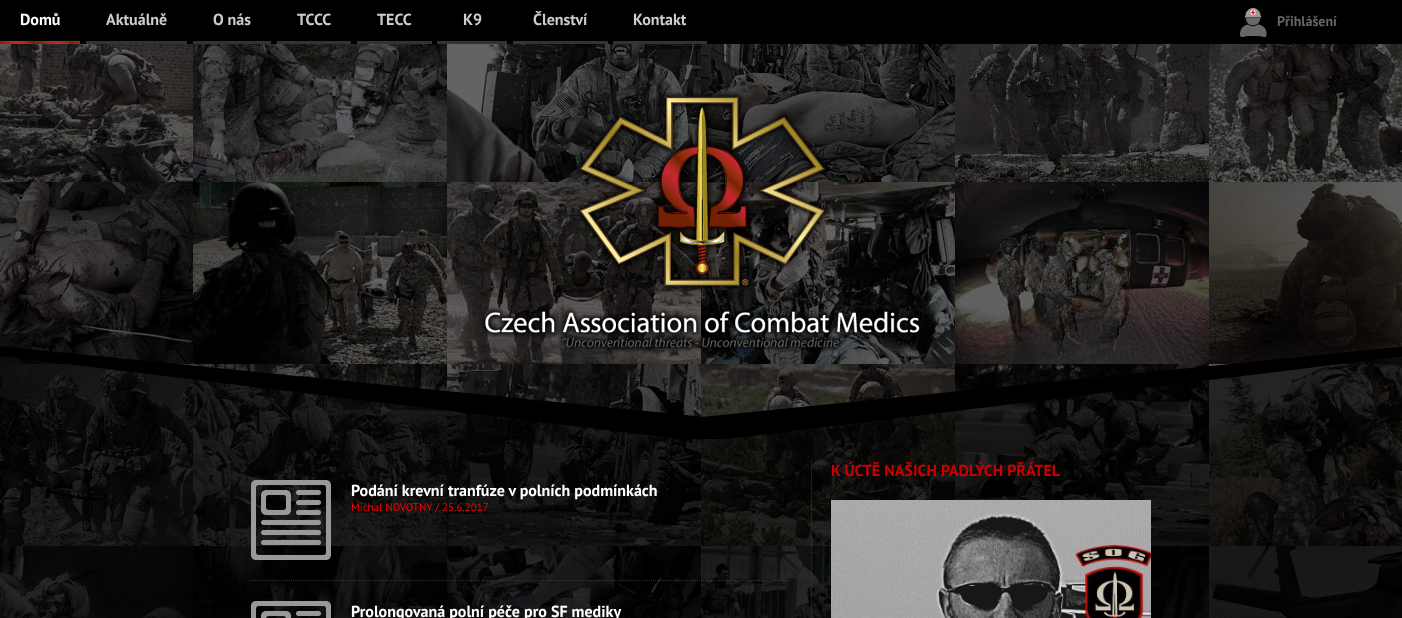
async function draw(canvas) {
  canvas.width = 1402;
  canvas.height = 618;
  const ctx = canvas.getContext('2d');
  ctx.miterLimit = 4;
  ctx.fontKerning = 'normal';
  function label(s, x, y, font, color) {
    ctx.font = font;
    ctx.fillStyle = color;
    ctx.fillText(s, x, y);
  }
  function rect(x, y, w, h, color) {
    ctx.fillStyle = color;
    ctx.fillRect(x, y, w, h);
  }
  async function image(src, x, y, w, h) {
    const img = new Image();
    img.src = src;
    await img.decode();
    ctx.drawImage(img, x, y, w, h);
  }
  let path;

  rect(0, 0, 1402, 618, '#fff');
  await image('assets/img1.png', 0, 44, 1402, 574);
  rect(0, 0, 1402, 44, '#000');
  await image('assets/img2.png', 0, 41, 80, 3);
  label('Domů', 20, 25, 'bold 16px PT Sans', '#fff');
  rect(86, 41, 101, 3, '#333');
  label('Aktuálně', 106, 25, 'bold 16px PT Sans', '#ccc');
  rect(193, 41, 78, 3, '#333');
  label('O nás', 213, 25, 'bold 16px PT Sans', '#ccc');
  rect(277, 41, 74, 3, '#333');
  label('TCCC', 297, 25, 'bold 16px PT Sans', '#ccc');
  rect(357, 41, 75, 3, '#333');
  label('TECC', 377, 25, 'bold 16px PT Sans', '#ccc');
  rect(437, 41, 70, 3, '#333');
  label('K9', 463, 25, 'bold 16px PT Sans', '#ccc');
  rect(513, 41, 95, 3, '#333');
  label('Členství', 533, 25, 'bold 16px PT Sans', '#ccc');
  rect(613, 41, 94, 3, '#333');
  label('Kontakt', 633, 25, 'bold 16px PT Sans', '#ccc');
  await image('assets/img3.png', 1240, 8, 27, 29);
  label('Přihlášení', 1277, 26, 'bold 14px PT Sans', '#666');
  await image('assets/img5.png', 0, 346, 1402, 93);
  await image('assets/img4.png', 481, 91, 439, 262);
  rect(0, 439, 1402, 179, '#00000099');
  label('K ÚCTĚ NAŠICH PADLÝCH PŘÁTEL', 831, 476, 'bold 16px PT Sans', '#c00');
  await image('assets/img6.png', 831, 500, 320, 118);
  path = new Path2D('M811.5 460V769');
  ctx.strokeStyle = '#333';
  ctx.setLineDash([1, 1]);
  ctx.stroke(path);
  path = new Path2D('M251 580.5H791');
  ctx.stroke(path);
  await image('assets/img7.png', 251, 480, 80, 80);
  label('Podání krevní tranfúze v polních podmínkách', 351, 496, 'bold 16px PT Sans', '#fff');
  label('Michal NOVOTNÝ / 25.6.2017', 351, 511, '11px PT Sans', '#f00');
  await image('assets/img8.png', 251, 601, 80, 17);
  label('Prolongovaná polní péče pro SF mediky', 351, 617, 'bold 16px PT Sans', '#fff');
}

draw(document.querySelector('canvas'));
